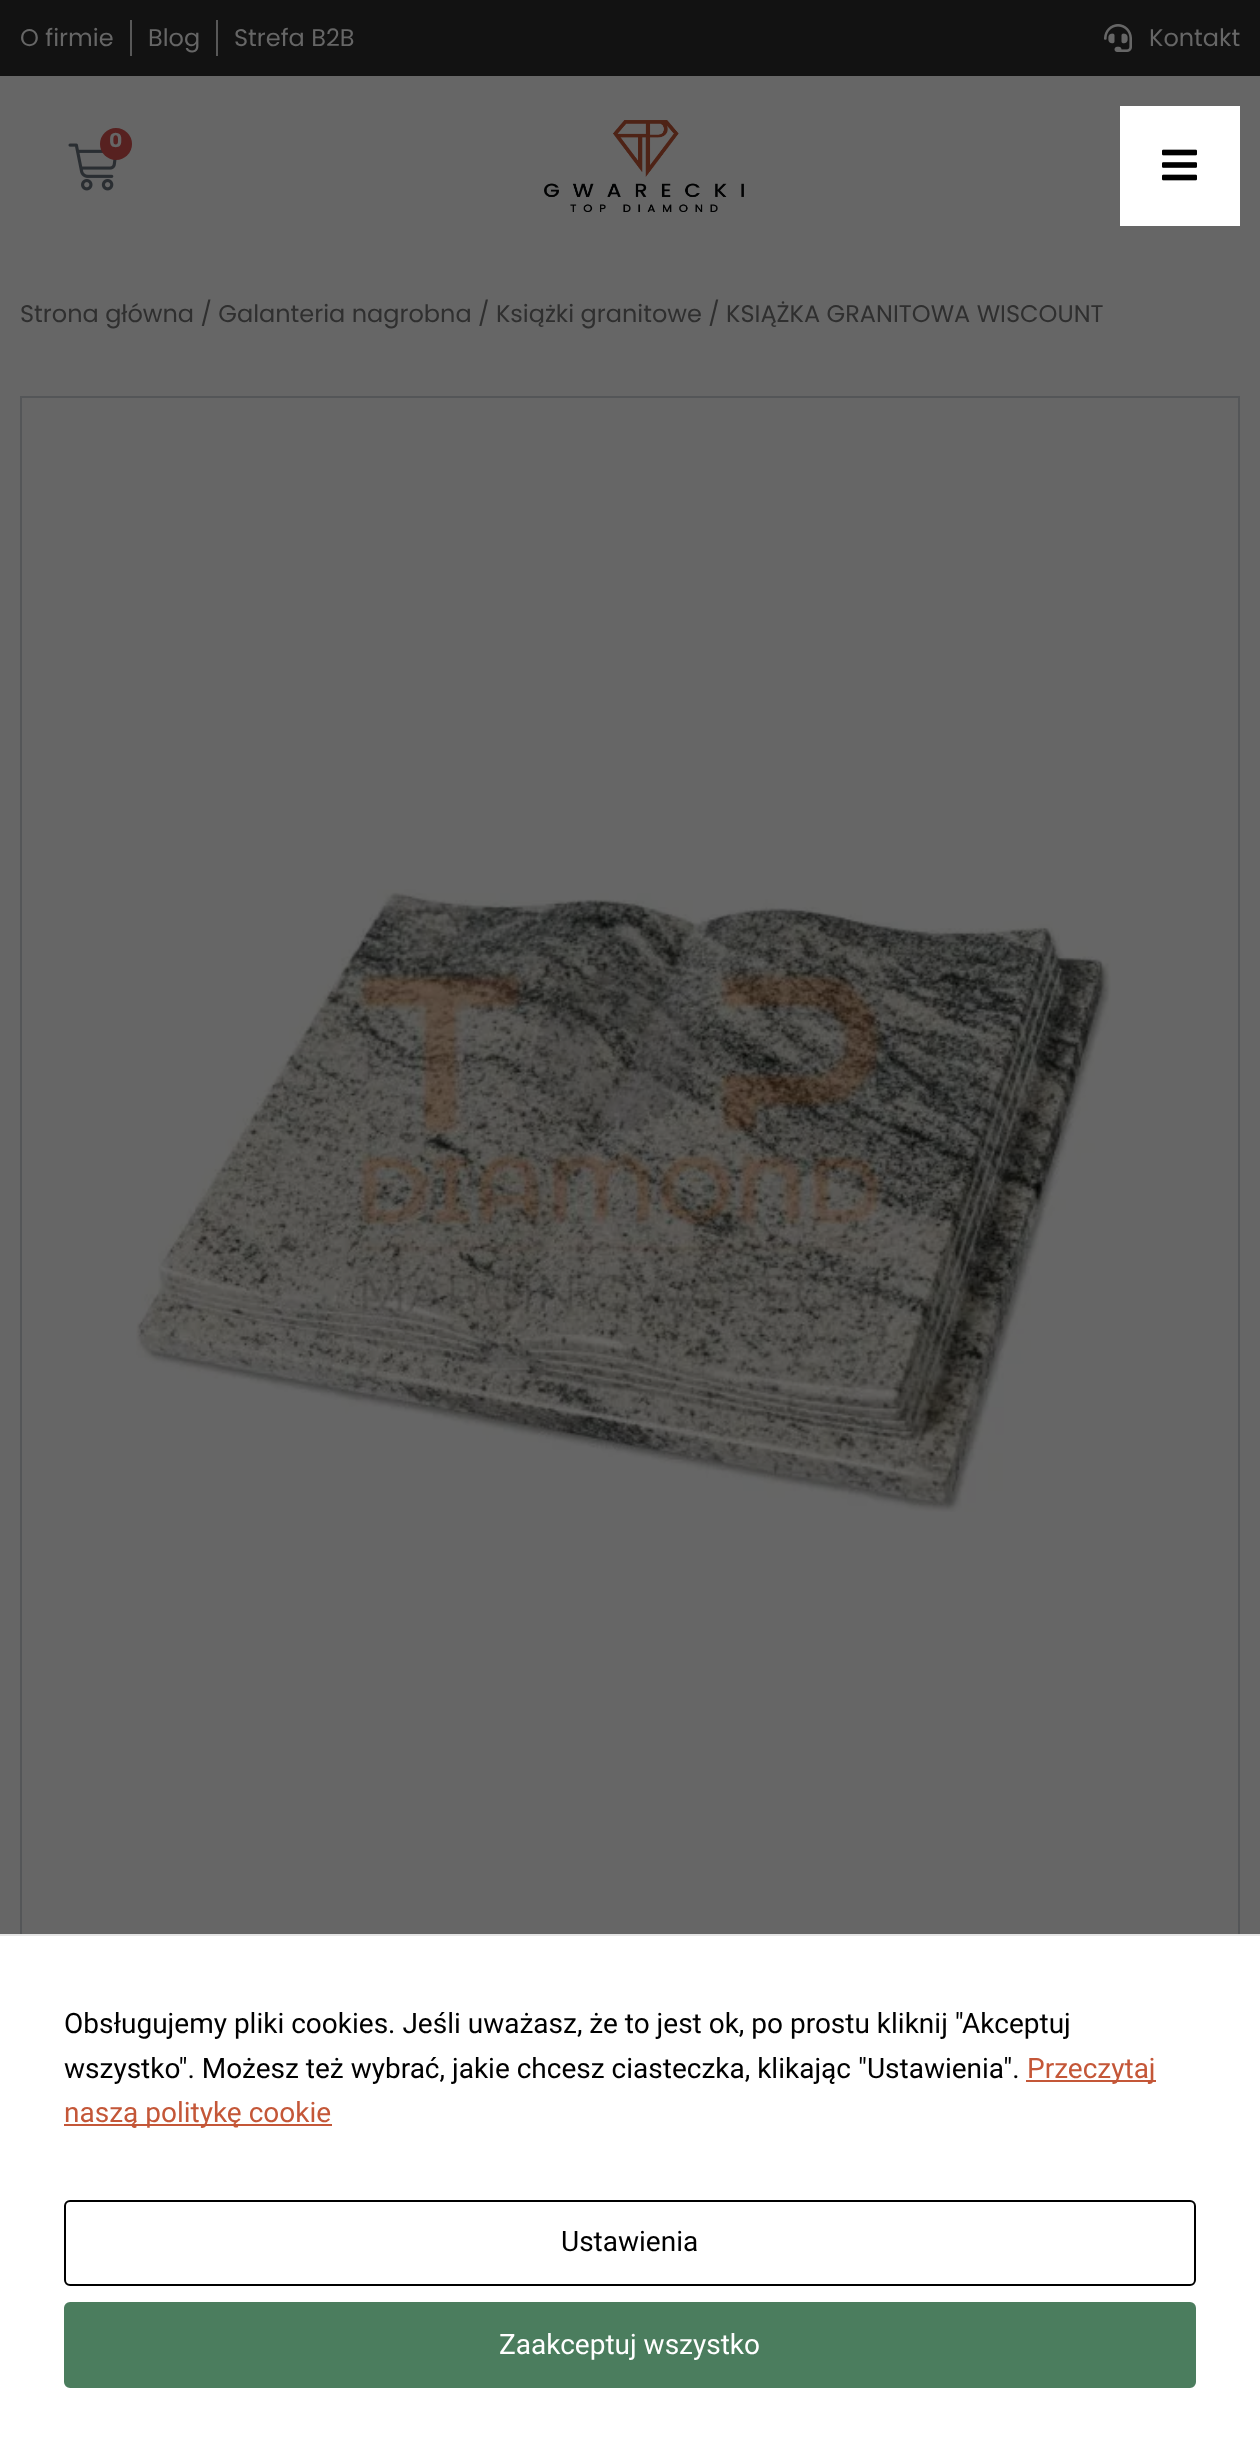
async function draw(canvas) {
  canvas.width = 1260;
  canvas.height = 2452;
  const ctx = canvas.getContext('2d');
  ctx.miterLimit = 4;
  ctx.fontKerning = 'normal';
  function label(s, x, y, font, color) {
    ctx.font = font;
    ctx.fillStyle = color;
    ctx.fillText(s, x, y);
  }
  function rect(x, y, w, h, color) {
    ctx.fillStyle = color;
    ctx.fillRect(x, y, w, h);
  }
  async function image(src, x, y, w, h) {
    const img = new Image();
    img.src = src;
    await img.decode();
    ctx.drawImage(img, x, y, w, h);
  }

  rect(0, 0, 1260, 2452, '#666');
  rect(0, 0, 1260, 76, '#121212');
  label('O firmie', 20, 46, '24px Poppins', '#666');
  rect(130, 20, 2, 36, '#585858');
  label('Blog', 148, 46, '24px Poppins', '#666');
  rect(216, 20, 2, 36, '#585858');
  label('Strefa B2B', 234, 46, '24px Poppins', '#666');
  await image('assets/img1.png', 1104, 24, 28, 28);
  label('Kontakt', 1149, 46, '24px Poppins', '#666');
  await image('assets/img2.png', 68, 143, 49, 48);
  ctx.fillStyle = '#572120';
  ctx.beginPath();
  ctx.arc(116, 144, 16, 0, 2 * Math.PI);
  ctx.fill();
  label('0', 109, 147, '600 20px Rubik', '#666');
  await image('assets/img3.png', 544, 120, 200, 92);
  rect(1120, 106, 120, 120, '#fff');
  await image('assets/img4.png', 1162, 149, 35, 32);
  label('Strona główna / Galanteria nagrobna / Książki granitowe / KSIĄŻKA GRANITOWA WISCOUNT', 20, 322, '24px Poppins', '#2f2f2f');
  ctx.strokeStyle = '#545658';
  ctx.lineWidth = 2;
  ctx.strokeRect(21, 397, 1218, 1560);
  await image('assets/img5.png', 136, 889, 975, 623);
  rect(0, 1936, 1260, 516, '#fff');
  rect(0, 1934, 1260, 2, '#e6e6e6');
  label('Obsługujemy pliki cookies. Jeśli uważasz, że to jest ok, po prostu kliknij "Akceptuj', 64, 2033, '28px Roboto', '#000');
  label('wszystko". Możesz też wybrać, jakie chcesz ciasteczka, klikając "Ustawienia".', 64, 2078, '28px Roboto', '#000');
  rect(1026, 2080, 130, 2, '#c45738');
  label('Przeczytaj', 1027, 2078, '28px Roboto', '#c45738');
  rect(64, 2124, 268, 2, '#c45738');
  label('naszą politykę cookie', 64, 2122, '28px Roboto', '#c45738');
  ctx.beginPath();
  ctx.roundRect(65, 2201, 1130, 84, 5);
  ctx.strokeStyle = '#000';
  ctx.stroke();
  label('Ustawienia', 561, 2251, '28px Roboto', '#000');
  ctx.fillStyle = '#4b7d5e';
  ctx.beginPath();
  ctx.roundRect(65, 2303, 1130, 84, 5);
  ctx.fill();
  ctx.strokeStyle = '#4b7d5e';
  ctx.stroke();
  label('Zaakceptuj wszystko', 499, 2354, '28px Roboto', '#fff');
}

draw(document.querySelector('canvas'));
